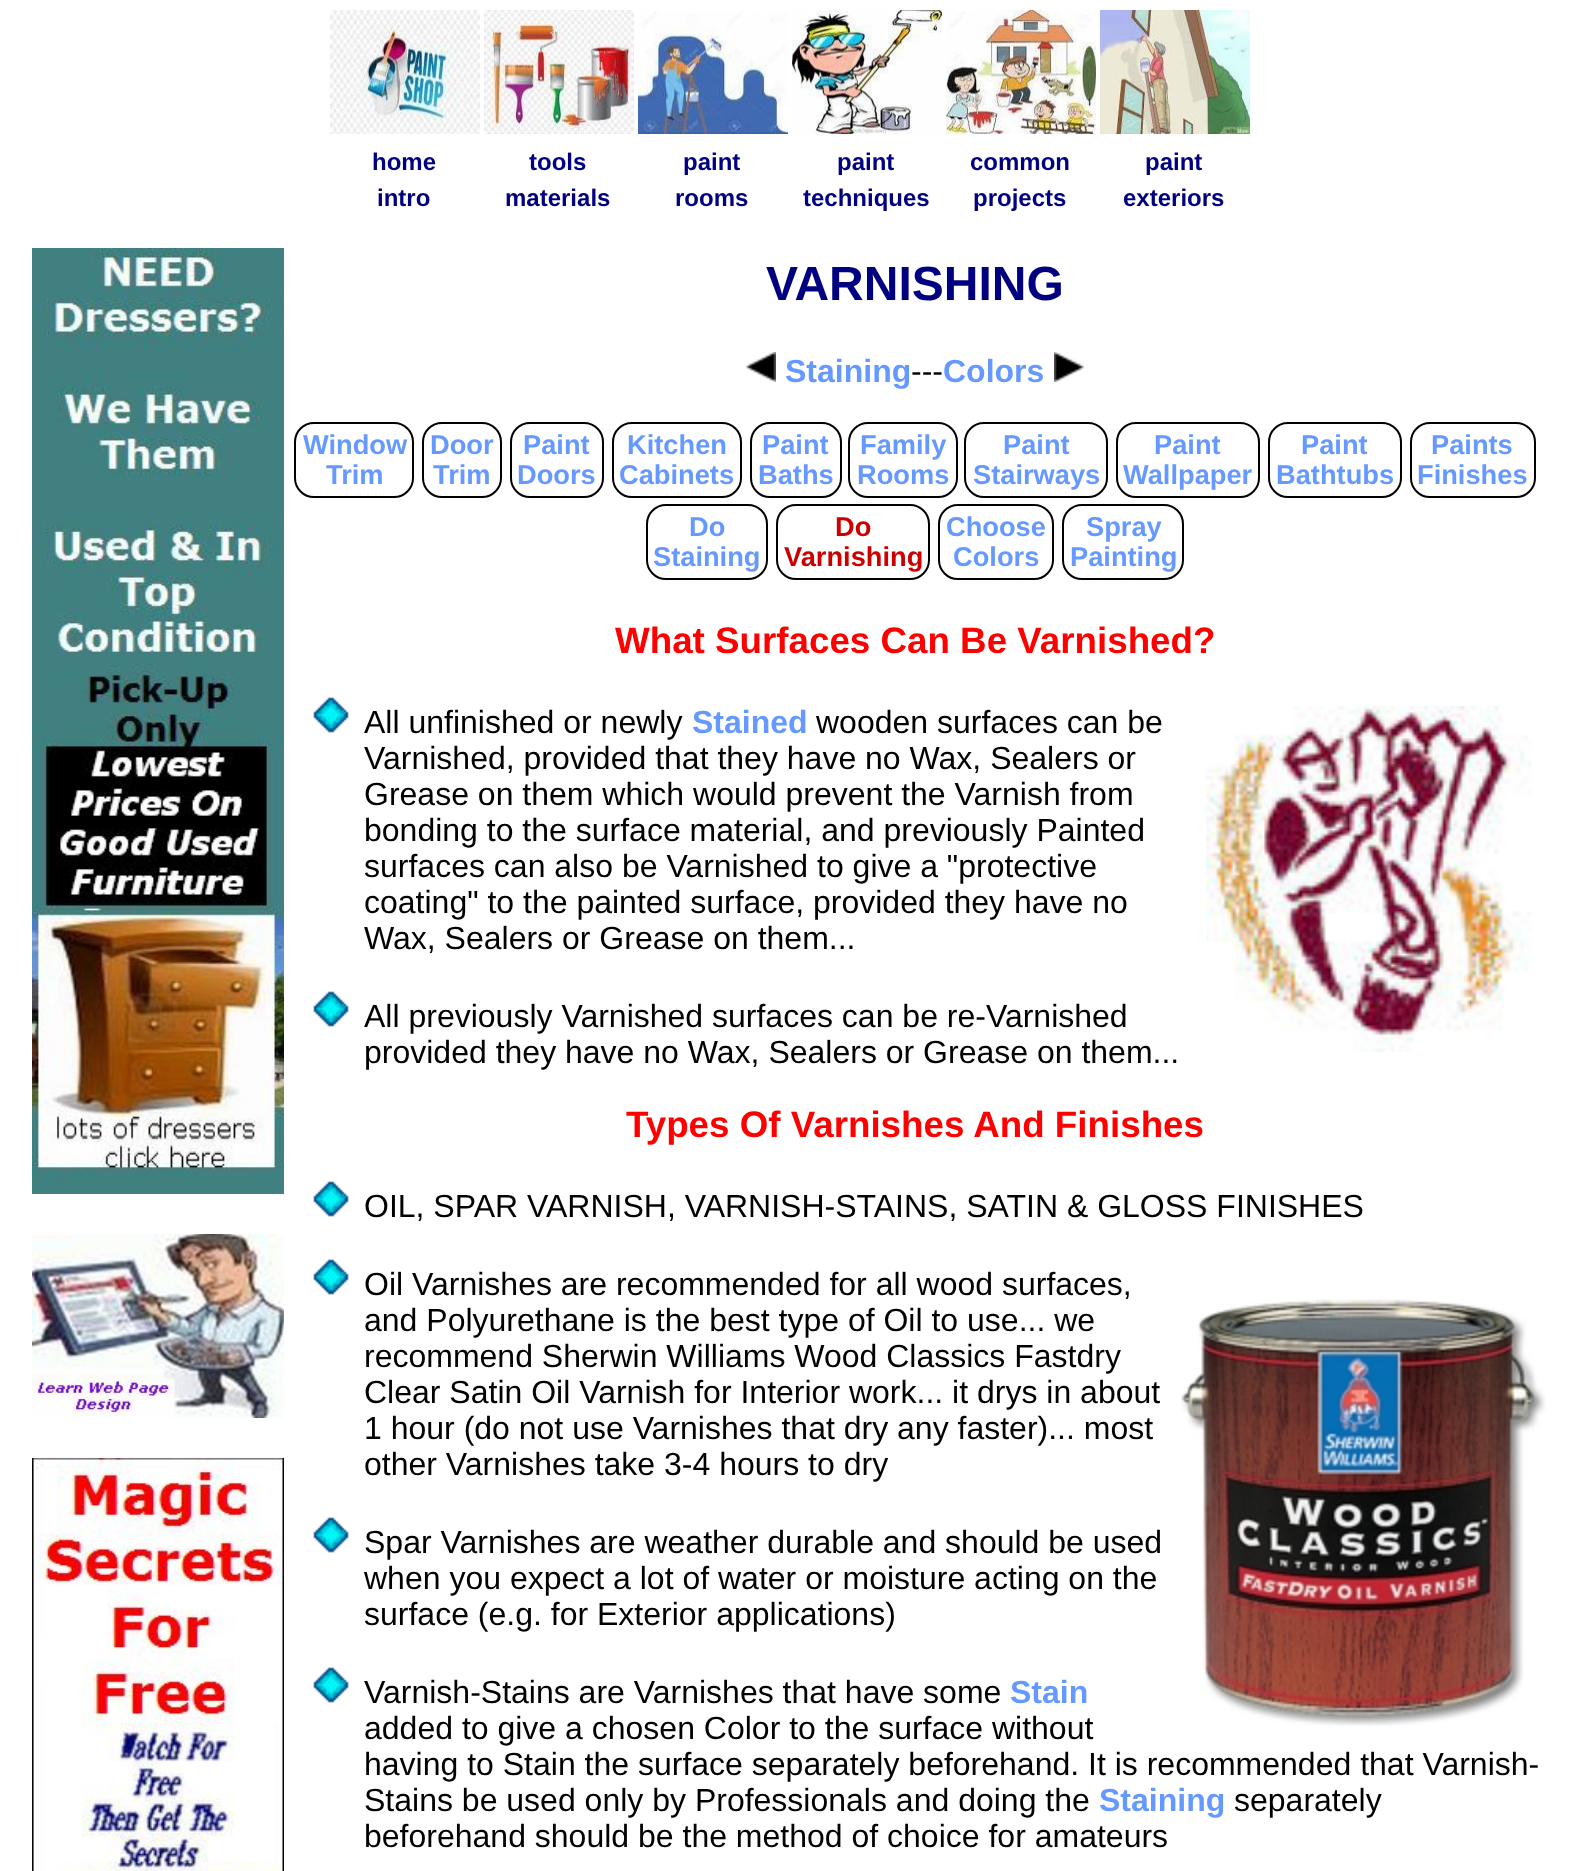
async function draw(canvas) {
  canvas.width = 1577;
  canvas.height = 1871;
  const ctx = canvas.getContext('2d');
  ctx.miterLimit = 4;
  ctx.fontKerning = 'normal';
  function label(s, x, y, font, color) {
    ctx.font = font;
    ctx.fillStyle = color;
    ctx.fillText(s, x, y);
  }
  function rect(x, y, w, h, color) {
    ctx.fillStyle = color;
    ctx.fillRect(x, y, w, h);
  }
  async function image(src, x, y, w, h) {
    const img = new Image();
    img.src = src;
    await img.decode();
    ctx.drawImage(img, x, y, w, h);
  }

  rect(0, 0, 1577, 1871, '#fff');
  await image('assets/img1.png', 330, 10, 150, 124);
  label('home', 372, 170, 'bold 24px Liberation Sans', '#000080');
  label('intro', 377, 206, 'bold 24px Liberation Sans', '#000080');
  await image('assets/img2.png', 484, 10, 150, 124);
  label('tools', 529, 170, 'bold 24px Liberation Sans', '#000080');
  label('materials', 505, 206, 'bold 24px Liberation Sans', '#000080');
  await image('assets/img3.png', 638, 11, 150, 123);
  label('paint', 683, 170, 'bold 24px Liberation Sans', '#000080');
  label('rooms', 675, 206, 'bold 24px Liberation Sans', '#000080');
  await image('assets/img4.png', 792, 10, 150, 124);
  label('paint', 837, 170, 'bold 24px Liberation Sans', '#000080');
  label('techniques', 803, 206, 'bold 24px Liberation Sans', '#000080');
  await image('assets/img5.png', 946, 10, 150, 124);
  label('common', 970, 170, 'bold 24px Liberation Sans', '#000080');
  label('projects', 973, 206, 'bold 24px Liberation Sans', '#000080');
  await image('assets/img6.png', 1100, 10, 150, 124);
  label('paint', 1145, 170, 'bold 24px Liberation Sans', '#000080');
  label('exteriors', 1123, 206, 'bold 24px Liberation Sans', '#000080');
  await image('assets/img7.png', 32, 248, 252, 946);
  await image('assets/img8.png', 32, 1234, 252, 184);
  await image('assets/img9.png', 32, 1458, 252, 413);
  label('VARNISHING', 766, 300, 'bold 48px Liberation Sans', '#000080');
  await image('assets/img10.png', 746, 352, 30, 30);
  label('Staining', 785, 382, 'bold 32px Liberation Sans', '#69f');
  label('---', 911, 382, '32px Liberation Sans', '#000');
  label('Colors', 943, 382, 'bold 32px Liberation Sans', '#69f');
  await image('assets/img11.png', 1054, 352, 30, 30);
  ctx.beginPath();
  ctx.roundRect(295, 423, 118, 74, 19);
  ctx.strokeStyle = '#000';
  ctx.lineWidth = 2;
  ctx.stroke();
  label('Window', 303, 454, 'bold 27.25px Liberation Sans', '#69f');
  label('Trim', 326, 484, 'bold 27.25px Liberation Sans', '#69f');
  ctx.beginPath();
  ctx.roundRect(423, 423, 78, 74, 19);
  ctx.stroke();
  label('Door', 430, 454, 'bold 27.25px Liberation Sans', '#69f');
  label('Trim', 433, 484, 'bold 27.25px Liberation Sans', '#69f');
  ctx.beginPath();
  ctx.roundRect(511, 423, 92, 74, 19);
  ctx.stroke();
  label('Paint', 523, 454, 'bold 27.25px Liberation Sans', '#69f');
  label('Doors', 517, 484, 'bold 27.25px Liberation Sans', '#69f');
  ctx.beginPath();
  ctx.roundRect(613, 423, 128, 74, 19);
  ctx.stroke();
  label('Kitchen', 627, 454, 'bold 27.25px Liberation Sans', '#69f');
  label('Cabinets', 619, 484, 'bold 27.25px Liberation Sans', '#69f');
  ctx.beginPath();
  ctx.roundRect(751, 423, 90, 74, 19);
  ctx.stroke();
  label('Paint', 762, 454, 'bold 27.25px Liberation Sans', '#69f');
  label('Baths', 758, 484, 'bold 27.25px Liberation Sans', '#69f');
  ctx.beginPath();
  ctx.roundRect(849, 423, 108, 74, 19);
  ctx.stroke();
  label('Family', 860, 454, 'bold 27.25px Liberation Sans', '#69f');
  label('Rooms', 857, 484, 'bold 27.25px Liberation Sans', '#69f');
  ctx.beginPath();
  ctx.roundRect(965, 423, 142, 74, 19);
  ctx.stroke();
  label('Paint', 1003, 454, 'bold 27.25px Liberation Sans', '#69f');
  label('Stairways', 973, 484, 'bold 27.25px Liberation Sans', '#69f');
  ctx.beginPath();
  ctx.roundRect(1117, 423, 142, 74, 19);
  ctx.stroke();
  label('Paint', 1154, 454, 'bold 27.25px Liberation Sans', '#69f');
  label('Wallpaper', 1123, 484, 'bold 27.25px Liberation Sans', '#69f');
  ctx.beginPath();
  ctx.roundRect(1269, 423, 132, 74, 19);
  ctx.stroke();
  label('Paint', 1301, 454, 'bold 27.25px Liberation Sans', '#69f');
  label('Bathtubs', 1276, 484, 'bold 27.25px Liberation Sans', '#69f');
  ctx.beginPath();
  ctx.roundRect(1411, 423, 124, 74, 19);
  ctx.stroke();
  label('Paints', 1431, 454, 'bold 27.25px Liberation Sans', '#69f');
  label('Finishes', 1417, 484, 'bold 27.25px Liberation Sans', '#69f');
  ctx.beginPath();
  ctx.roundRect(647, 505, 120, 74, 19);
  ctx.stroke();
  label('Do', 689, 536, 'bold 27.25px Liberation Sans', '#69f');
  label('Staining', 653, 566, 'bold 27.25px Liberation Sans', '#69f');
  ctx.beginPath();
  ctx.roundRect(777, 505, 152, 74, 19);
  ctx.stroke();
  label('Do', 835, 536, 'bold 27.25px Liberation Sans', '#c00');
  label('Varnishing', 784, 566, 'bold 27.25px Liberation Sans', '#c00');
  ctx.beginPath();
  ctx.roundRect(939, 505, 114, 74, 19);
  ctx.stroke();
  label('Choose', 946, 536, 'bold 27.25px Liberation Sans', '#69f');
  label('Colors', 953, 566, 'bold 27.25px Liberation Sans', '#69f');
  ctx.beginPath();
  ctx.roundRect(1063, 505, 120, 74, 19);
  ctx.stroke();
  label('Spray', 1086, 536, 'bold 27.25px Liberation Sans', '#69f');
  label('Painting', 1070, 566, 'bold 27.25px Liberation Sans', '#69f');
  label('What Surfaces Can Be Varnished?', 615, 653, 'bold 36.75px Liberation Sans', '#f00');
  await image('assets/img12.png', 313, 697, 36, 36);
  label('All unfinished or newly', 364, 733, '32px Liberation Sans', '#000');
  label('Stained', 692, 733, 'bold 32px Liberation Sans', '#69f');
  label('wooden surfaces can be', 816, 733, '32px Liberation Sans', '#000');
  await image('assets/img13.png', 1206, 706, 326, 346);
  label('Varnished, provided that they have no Wax, Sealers or', 364, 769, '32px Liberation Sans', '#000');
  label('Grease on them which would prevent the Varnish from', 364, 805, '32px Liberation Sans', '#000');
  label('bonding to the surface material, and previously Painted', 364, 841, '32px Liberation Sans', '#000');
  label('surfaces can also be Varnished to give a "protective', 364, 877, '32px Liberation Sans', '#000');
  label('coating" to the painted surface, provided they have no', 364, 913, '32px Liberation Sans', '#000');
  label('Wax, Sealers or Grease on them...', 364, 949, '32px Liberation Sans', '#000');
  await image('assets/img12.png', 313, 991, 36, 36);
  label('All previously Varnished surfaces can be re-Varnished', 364, 1027, '32px Liberation Sans', '#000');
  label('provided they have no Wax, Sealers or Grease on them...', 364, 1063, '32px Liberation Sans', '#000');
  label('Types Of Varnishes And Finishes', 626, 1137, 'bold 36.75px Liberation Sans', '#f00');
  await image('assets/img12.png', 313, 1181, 36, 36);
  label('OIL, SPAR VARNISH, VARNISH-STAINS, SATIN & GLOSS FINISHES', 364, 1217, '32px Liberation Sans', '#000');
  await image('assets/img12.png', 313, 1259, 36, 36);
  label('Oil Varnishes are recommended for all wood surfaces,', 364, 1295, '32px Liberation Sans', '#000');
  label('and Polyurethane is the best type of Oil to use... we', 364, 1331, '32px Liberation Sans', '#000');
  await image('assets/img14.png', 1181, 1299, 365, 427);
  label('recommend Sherwin Williams Wood Classics Fastdry', 364, 1367, '32px Liberation Sans', '#000');
  label('Clear Satin Oil Varnish for Interior work... it drys in about', 364, 1403, '32px Liberation Sans', '#000');
  label('1 hour (do not use Varnishes that dry any faster)... most', 364, 1439, '32px Liberation Sans', '#000');
  label('other Varnishes take 3-4 hours to dry', 364, 1475, '32px Liberation Sans', '#000');
  await image('assets/img12.png', 313, 1517, 36, 36);
  label('Spar Varnishes are weather durable and should be used', 364, 1553, '32px Liberation Sans', '#000');
  label('when you expect a lot of water or moisture acting on the', 364, 1589, '32px Liberation Sans', '#000');
  label('surface (e.g. for Exterior applications)', 364, 1625, '32px Liberation Sans', '#000');
  await image('assets/img12.png', 313, 1667, 36, 36);
  label('Varnish-Stains are Varnishes that have some', 364, 1703, '32px Liberation Sans', '#000');
  label('Stain', 1010, 1703, 'bold 32px Liberation Sans', '#69f');
  label('added to give a chosen Color to the surface without', 364, 1739, '32px Liberation Sans', '#000');
  label('having to Stain the surface separately beforehand. It is recommended that Varnish-', 364, 1775, '32px Liberation Sans', '#000');
  label('Stains be used only by Professionals and doing the', 364, 1811, '32px Liberation Sans', '#000');
  label('Staining', 1099, 1811, 'bold 32px Liberation Sans', '#69f');
  label('separately', 1234, 1811, '32px Liberation Sans', '#000');
  label('beforehand should be the method of choice for amateurs', 364, 1847, '32px Liberation Sans', '#000');
}

draw(document.querySelector('canvas'));
